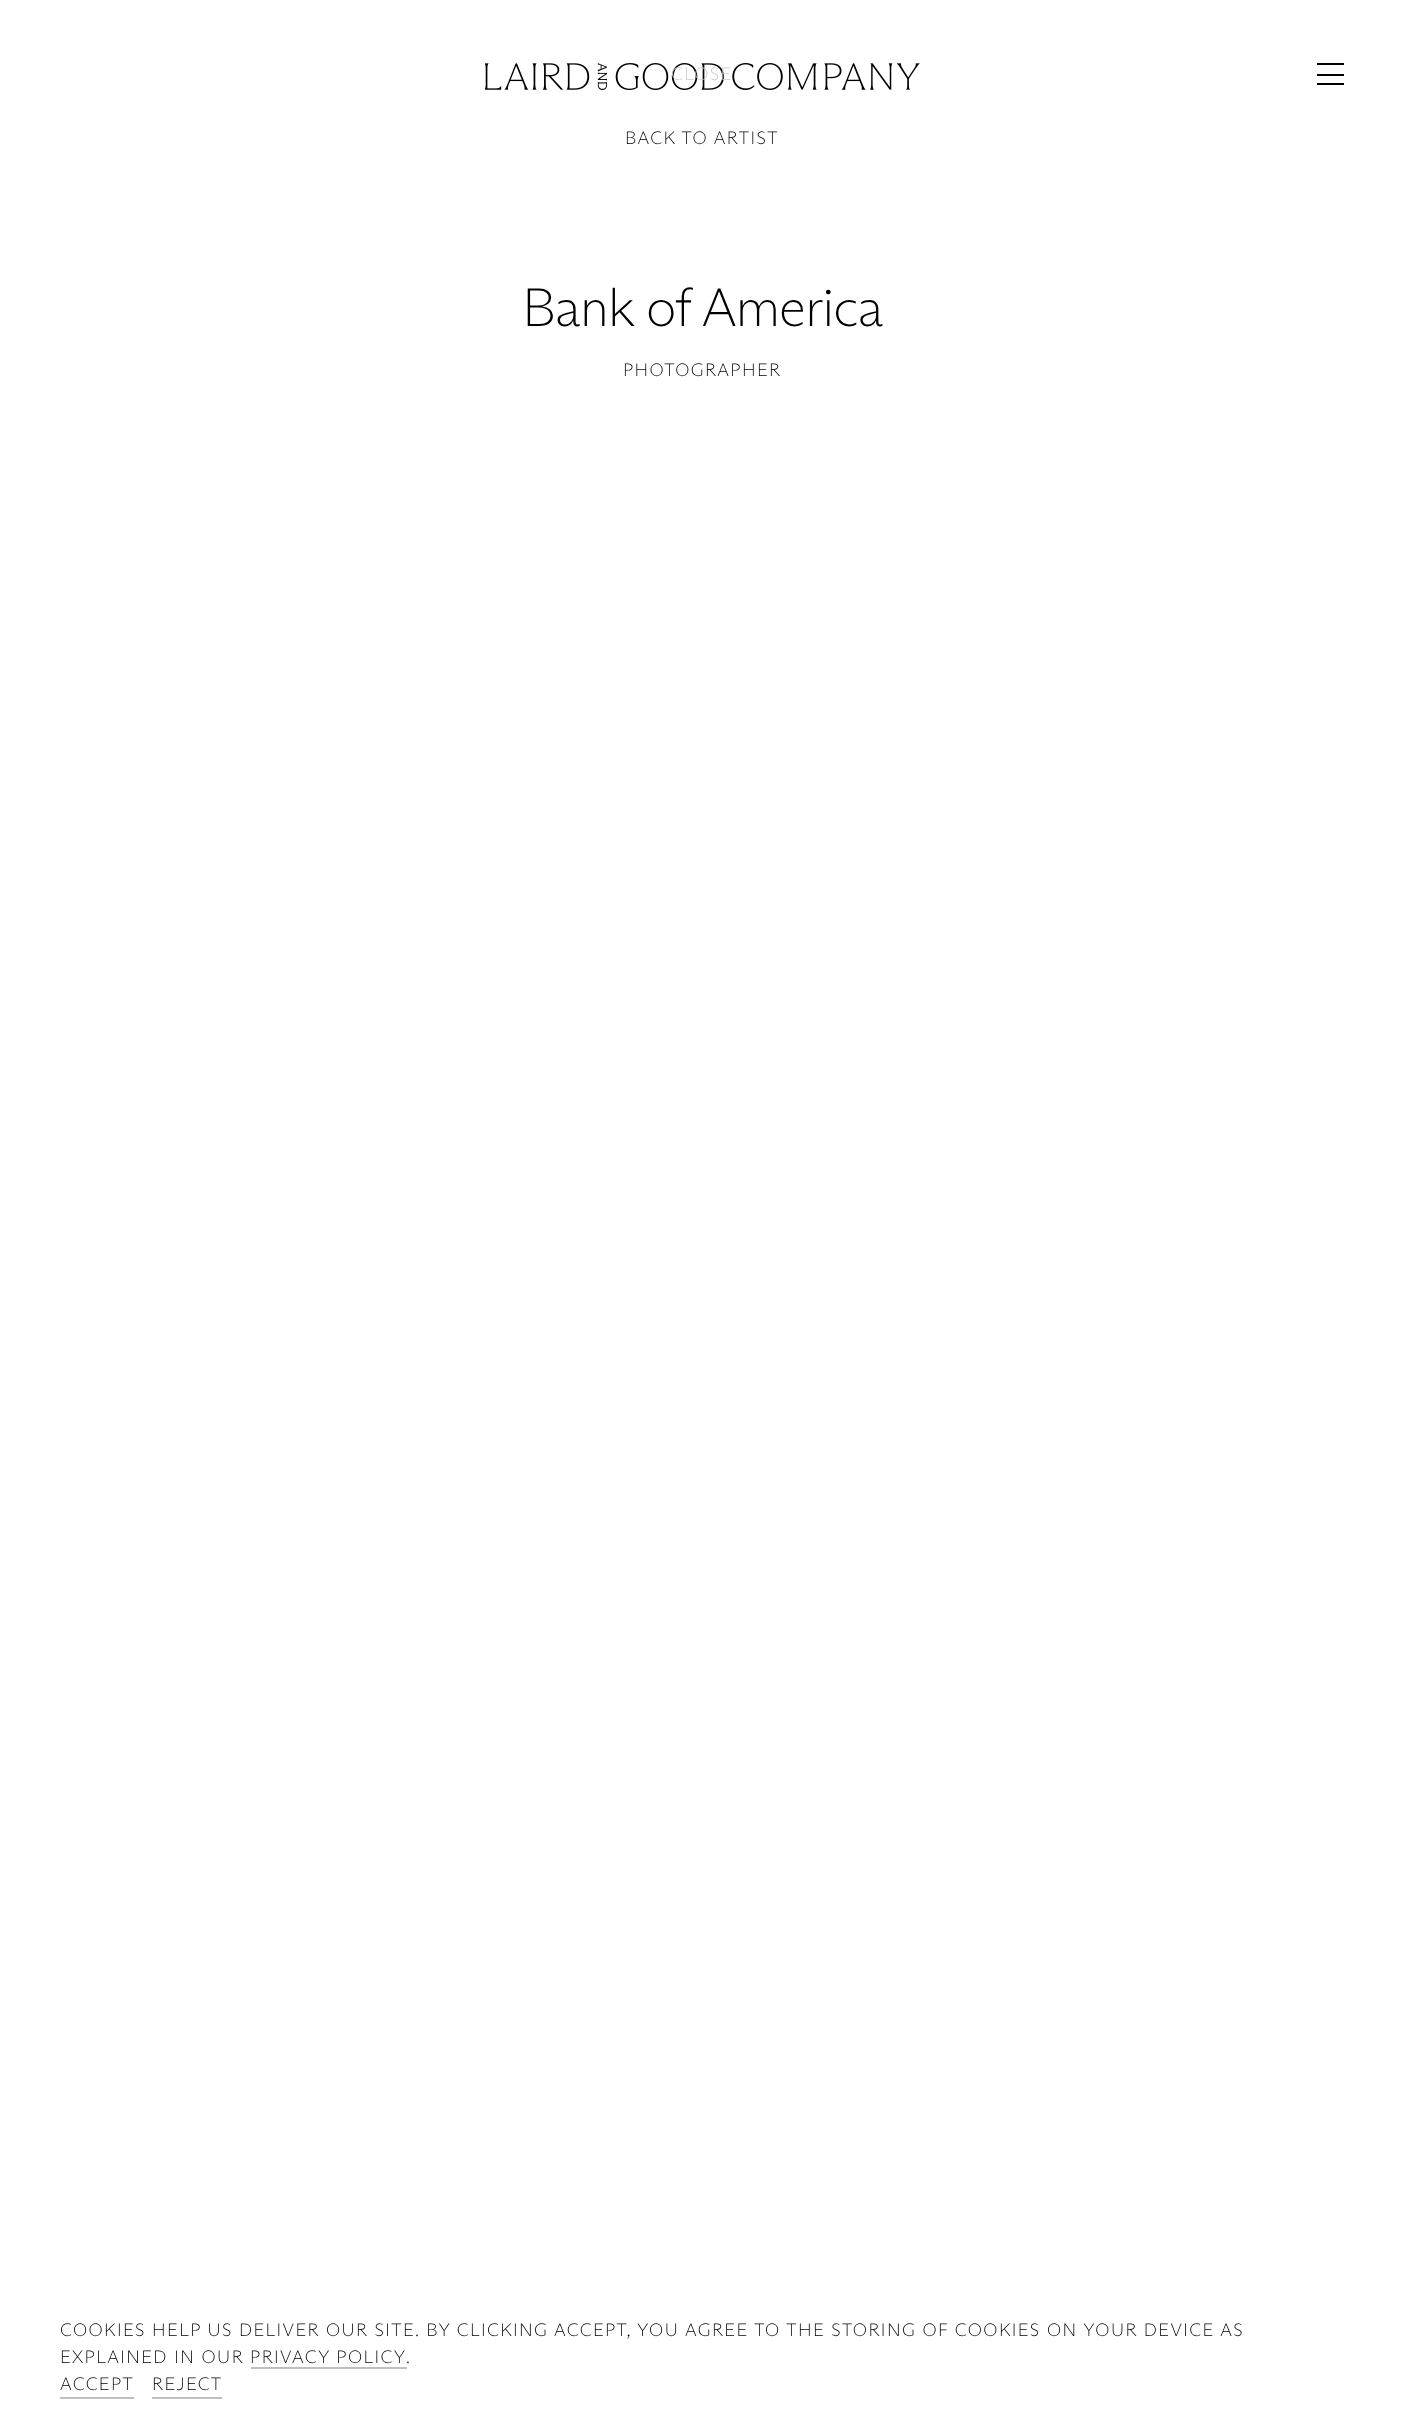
async function draw(canvas) {
  canvas.width = 1404;
  canvas.height = 2421;
  const ctx = canvas.getContext('2d');
  ctx.miterLimit = 4;
  ctx.fontKerning = 'normal';
  function label(s, x, y, font, color) {
    ctx.font = font;
    ctx.fillStyle = color;
    ctx.fillText(s, x, y);
  }
  function rect(x, y, w, h, color) {
    ctx.fillStyle = color;
    ctx.fillRect(x, y, w, h);
  }
  async function image(src, x, y, w, h) {
    const img = new Image();
    img.src = src;
    await img.decode();
    ctx.drawImage(img, x, y, w, h);
  }

  rect(0, 0, 1404, 2421, '#fff');
  await image('assets/img1.png', 485, 63, 435, 27);
  rect(1317, 63, 27, 2, '#000');
  rect(1317, 74, 27, 2, '#000');
  rect(1317, 83, 27, 2, '#000');
  ctx.letterSpacing = '1.44px';
  label('CLOSE', 671, 80, '100 18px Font', '#cbcbcb');
  label('BACK TO ARTIST', 625, 144, '100 18px Font', '#000');
  ctx.letterSpacing = '-1.1px';
  label('Bank of America', 522, 326, '100 54px Font', '#000');
  ctx.letterSpacing = '1.44px';
  label('PHOTOGRAPHER', 623, 376, '100 18px Font', '#000');
  label('COOKIES HELP US DELIVER OUR SITE. BY CLICKING ACCEPT, YOU AGREE TO THE STORING OF COOKIES ON YOUR DEVICE AS', 60, 2336, '100 18px Font', '#000');
  label('EXPLAINED IN OUR PRIVACY POLICY', 60, 2363, '100 18px Font', '#000');
  label('.', 406, 2363, '100 18px Font', '#000');
  rect(251, 2367, 156, 2, '#bfbfbf');
  label('ACCEPT', 60, 2390, '100 18px Font', '#000');
  rect(60, 2397, 74, 2, '#bfbfbf');
  label('REJECT', 152, 2390, '100 18px Font', '#000');
  rect(152, 2397, 70, 2, '#bfbfbf');
}

draw(document.querySelector('canvas'));
